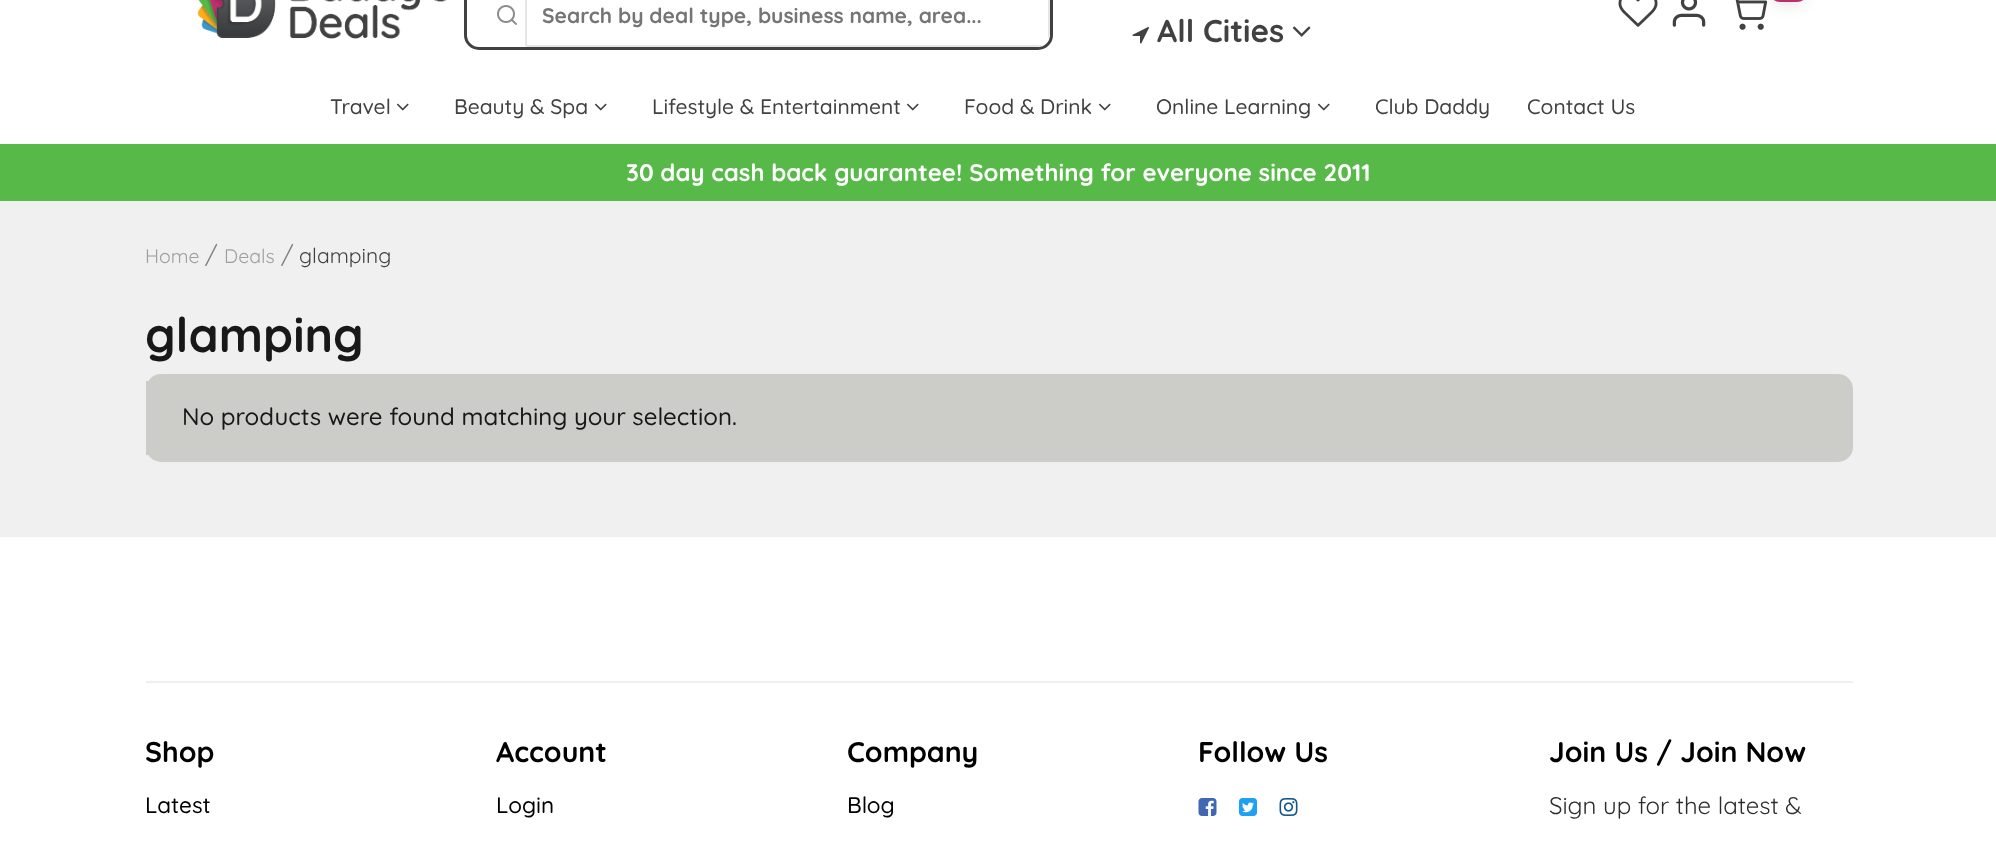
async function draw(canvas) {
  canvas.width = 1996;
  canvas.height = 842;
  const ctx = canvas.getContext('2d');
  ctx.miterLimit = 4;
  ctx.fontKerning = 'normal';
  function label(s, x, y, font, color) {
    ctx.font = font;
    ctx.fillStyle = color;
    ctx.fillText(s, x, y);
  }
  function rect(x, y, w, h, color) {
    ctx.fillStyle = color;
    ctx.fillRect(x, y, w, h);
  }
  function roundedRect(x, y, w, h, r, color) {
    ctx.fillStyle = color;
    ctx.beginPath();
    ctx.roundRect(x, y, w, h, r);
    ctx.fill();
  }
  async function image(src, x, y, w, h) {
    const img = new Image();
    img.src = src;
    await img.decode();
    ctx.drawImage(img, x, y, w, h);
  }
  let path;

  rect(0, 0, 1996, 842, '#fff');
  await image('assets/img1.png', 197, 0, 250, 39);
  ctx.beginPath();
  ctx.roundRect(465.5, -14.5, 586, 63, 13.5);
  ctx.strokeStyle = '#414042';
  ctx.lineWidth = 3;
  ctx.stroke();
  roundedRect(467, -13, 583, 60, 15, '#fff');
  await image('assets/img2.png', 497, 5, 20, 20);
  path = new Path2D('M528-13H1035C1043.5-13 1050-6.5 1050 2V32C1050 40.5 1043.5 47 1035 47H528C526.5 47 525 45.5 525 44V-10C525-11.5 526.5-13 528-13Z');
  ctx.fill(path);
  ctx.fillStyle = '#e5e5e5';
  path = new Path2D('M528-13C526-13 525-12 525-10V44C525 46 526 47 528 47H1035C1038 47 1040 46 1042 45H528C527 45 527 45 527 44V-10C527-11 527-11 528-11H1042C1040-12 1038-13 1035-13ZM1050 2C1050-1 1049-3 1048-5V39C1049 37 1050 35 1050 32Z');
  ctx.fill(path, 'evenodd');
  label('Search by deal type, business name, area...', 542, 23, 'bold 21px Quicksand', '#757575');
  await image('assets/img3.png', 1132, 27, 17, 17);
  label('All Cities', 1157, 42, 'bold 31.5px Quicksand', '#414042');
  await image('assets/img4.png', 1292, 26, 19, 11);
  await image('assets/img5.png', 1618, 0, 40, 27);
  await image('assets/img6.png', 1672, 0, 34, 27);
  await image('assets/img7.png', 1735, 0, 33, 30);
  ctx.fillStyle = '#0000001a';
  ctx.filter = 'blur(7.5px)';
  ctx.beginPath();
  ctx.roundRect(1769, -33, 39, 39, 19.5);
  ctx.fill();
  ctx.filter = 'none';
  roundedRect(1769, -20, 39, 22, 19.5, '#bd2e6c');
  label('Travel', 330, 114, '500 21px Quicksand', '#414042');
  await image('assets/img8.png', 396, 103, 13, 8);
  label('Beauty & Spa', 454, 114, '500 21px Quicksand', '#414042');
  await image('assets/img8.png', 594, 103, 13, 8);
  label('Lifestyle & Entertainment', 652, 114, '500 21px Quicksand', '#414042');
  await image('assets/img8.png', 906, 103, 13, 8);
  label('Food & Drink', 964, 114, '500 21px Quicksand', '#414042');
  await image('assets/img8.png', 1098, 103, 13, 8);
  label('Online Learning', 1156, 114, '500 21px Quicksand', '#414042');
  await image('assets/img8.png', 1317, 103, 13, 8);
  label('Club Daddy', 1375, 114, '500 21px Quicksand', '#414042');
  label('Contact Us', 1527, 114, '500 21px Quicksand', '#414042');
  rect(0, 144, 1996, 57, '#56b948');
  label('30 day cash back guarantee! Something for everyone since 2011', 626, 181, 'bold 24px Quicksand', '#fff');
  rect(0, 201, 1996, 336, '#f0f0f0');
  label('Home', 145, 263, '300 19.5px Quicksand', '#9ea0a3');
  label('/', 205, 263, '300 24px Quicksand', '#808080');
  label('Deals', 224, 263, '300 19.5px Quicksand', '#9ea0a3');
  label('/', 281, 263, '300 24px Quicksand', '#808080');
  label('glamping', 299, 263, '300 21px Quicksand', '#414042');
  label('glamping', 145, 352, 'bold 48px Quicksand', '#181818');
  roundedRect(146, 374, 1707, 88, 15, '#cccdc9');
  rect(146, 381, 3, 74, '#cccdc9');
  label('No products were found matching your selection.', 182, 425, '500 24px Quicksand', '#181818');
  rect(146, 681, 1707, 2, '#efefef');
  label('Shop', 145, 762, 'bold 28.5px Quicksand', '#000');
  label('Latest', 145, 813, '500 22.5px Quicksand', '#000');
  label('Account', 496, 762, 'bold 28.5px Quicksand', '#000');
  label('Login', 496, 813, '500 22.5px Quicksand', '#000');
  label('Company', 847, 762, 'bold 28.5px Quicksand', '#000');
  label('Blog', 847, 813, '500 22.5px Quicksand', '#000');
  label('Follow Us', 1198, 762, 'bold 28.5px Quicksand', '#000');
  await image('assets/img9.png', 1198, 798, 19, 18);
  await image('assets/img10.png', 1239, 798, 18, 18);
  await image('assets/img11.png', 1279, 798, 19, 18);
  label('Join Us / Join Now', 1549, 762, 'bold 28.5px Quicksand', '#000');
  label('Sign up for the latest &', 1549, 814, '300 24px Quicksand', '#2c2c2c');
}

draw(document.querySelector('canvas'));
